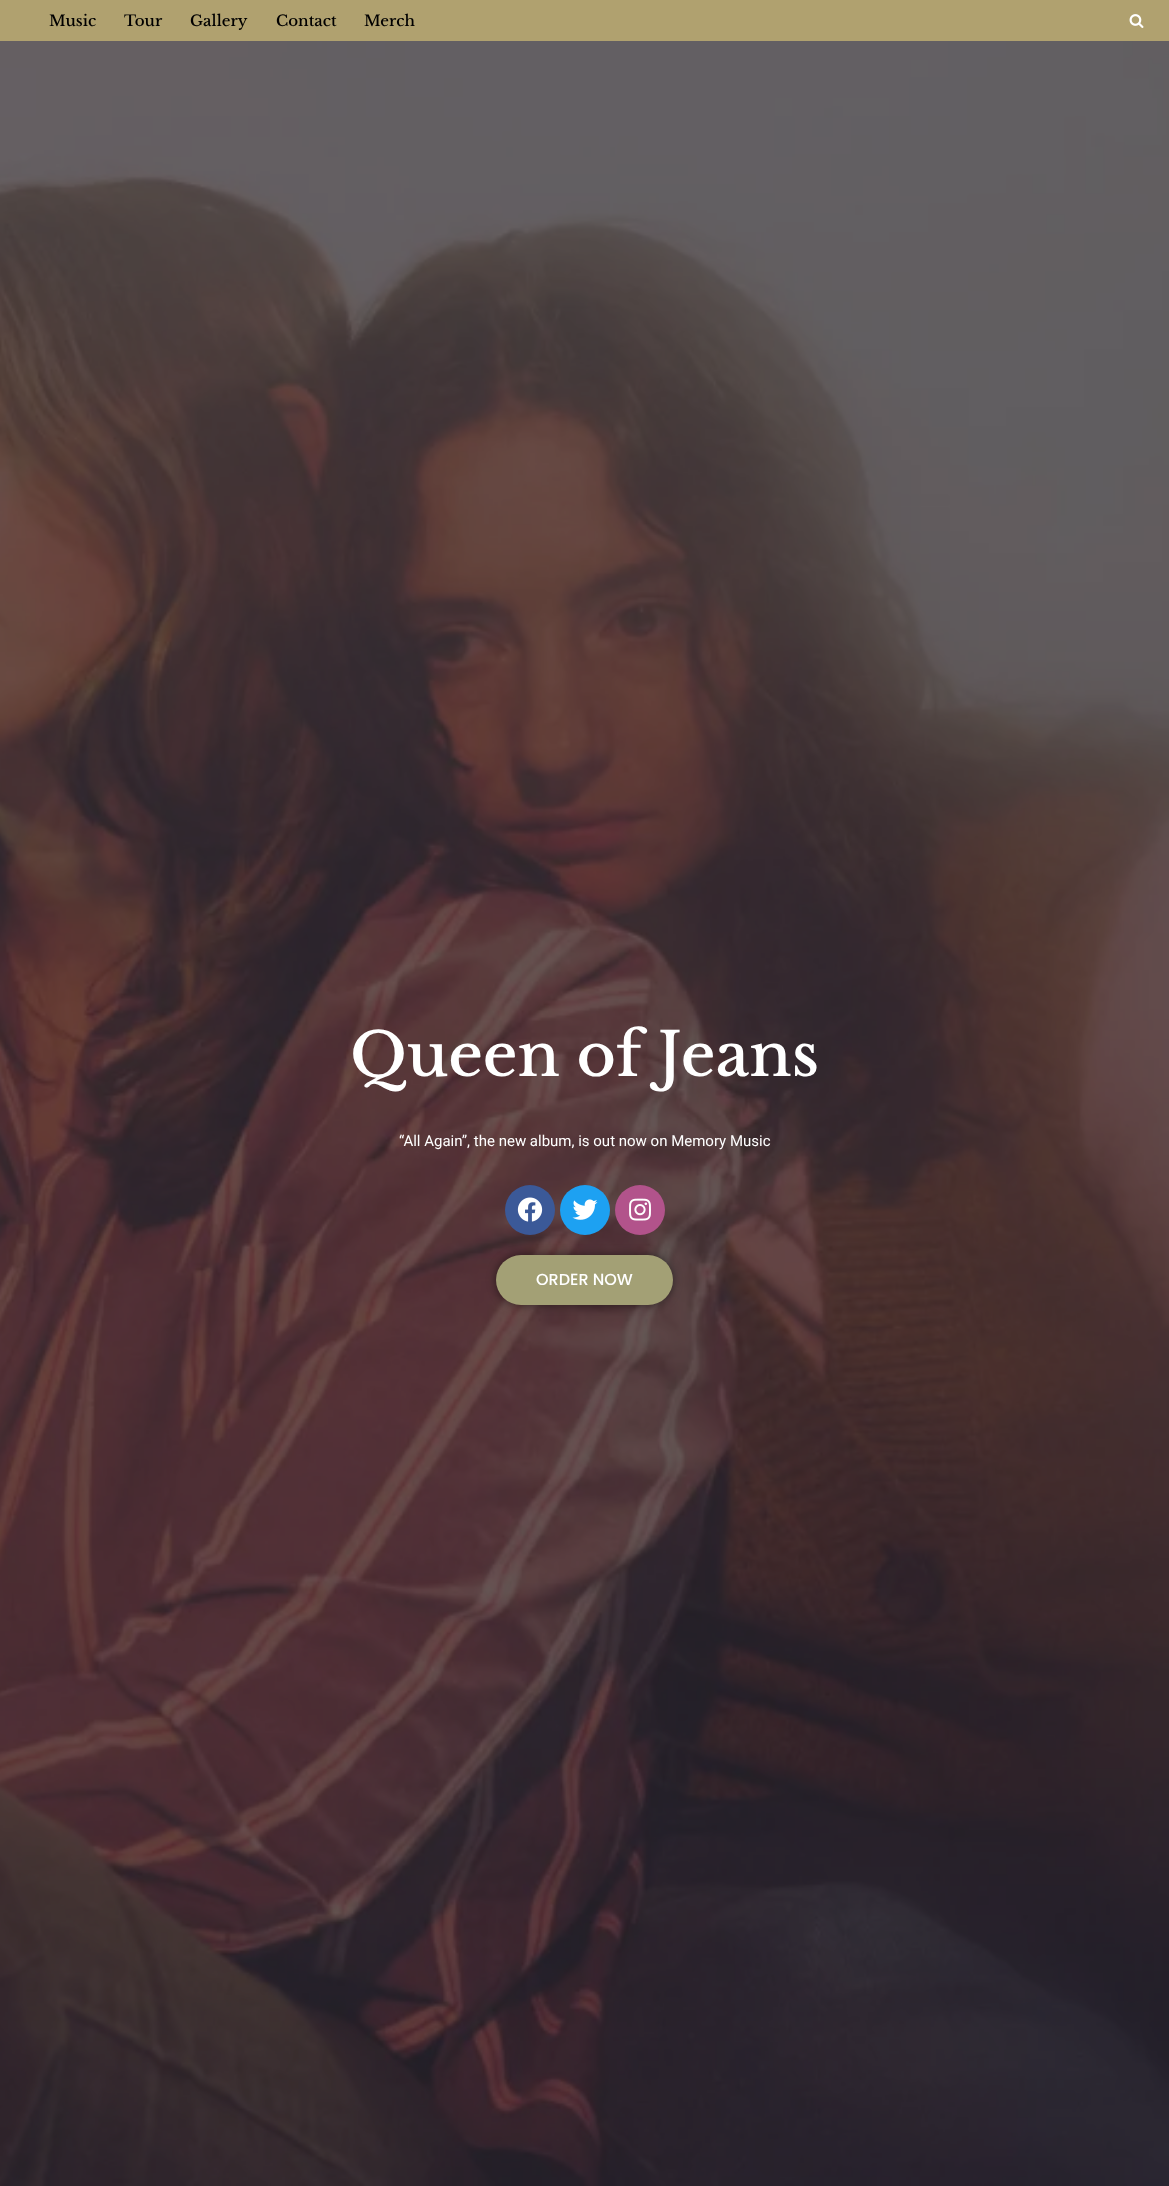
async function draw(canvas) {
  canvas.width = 1169;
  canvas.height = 2186;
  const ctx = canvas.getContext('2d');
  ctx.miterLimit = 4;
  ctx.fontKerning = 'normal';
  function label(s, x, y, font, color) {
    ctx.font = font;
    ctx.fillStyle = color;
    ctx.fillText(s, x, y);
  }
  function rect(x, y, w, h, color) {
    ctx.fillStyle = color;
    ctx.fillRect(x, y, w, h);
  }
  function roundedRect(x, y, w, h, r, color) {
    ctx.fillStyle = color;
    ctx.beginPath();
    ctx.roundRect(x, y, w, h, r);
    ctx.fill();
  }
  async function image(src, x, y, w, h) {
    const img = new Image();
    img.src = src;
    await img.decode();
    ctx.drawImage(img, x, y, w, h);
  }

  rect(0, 0, 1169, 2186, '#b0a16f');
  label('Music', 49, 26, '500 15px Libre Baskerville', '#010000');
  label('Tour', 124, 26, '500 15px Libre Baskerville', '#010000');
  label('Gallery', 190, 26, '500 15px Libre Baskerville', '#010000');
  label('Contact', 276, 26, '500 15px Libre Baskerville', '#010000');
  label('Merch', 364, 26, '500 15px Libre Baskerville', '#010000');
  await image('assets/img1.png', 1129, 14, 15, 14);
  await image('assets/img2.png', 0, 41, 1169, 2145);
  label('Queen of Jeans', 350, 1076, '500 60px Libre Baskerville', '#fff');
  label('“All Again”, the new album, is out now on Memory Music', 399, 1146, '15px Roboto', '#fff');
  ctx.fillStyle = '#3b5998';
  ctx.beginPath();
  ctx.arc(530, 1210, 25, 0, 2 * Math.PI);
  ctx.fill();
  await image('assets/img3.png', 517, 1197, 26, 25);
  ctx.fillStyle = '#1da1f2';
  ctx.beginPath();
  ctx.arc(585, 1210, 25, 0, 2 * Math.PI);
  ctx.fill();
  await image('assets/img4.png', 572, 1199, 26, 21);
  ctx.fillStyle = '#b2538b';
  ctx.beginPath();
  ctx.arc(640, 1210, 25, 0, 2 * Math.PI);
  ctx.fill();
  await image('assets/img5.png', 629, 1198, 22, 23);
  ctx.fillStyle = '#00000080';
  ctx.filter = 'blur(5px)';
  ctx.beginPath();
  ctx.roundRect(496, 1255, 177, 50, 25);
  ctx.fill();
  ctx.filter = 'none';
  roundedRect(496, 1255, 177, 50, 25, '#a3a075');
  label('ORDER NOW', 536, 1285, '500 16px Poppins', '#fff');
}

draw(document.querySelector('canvas'));
